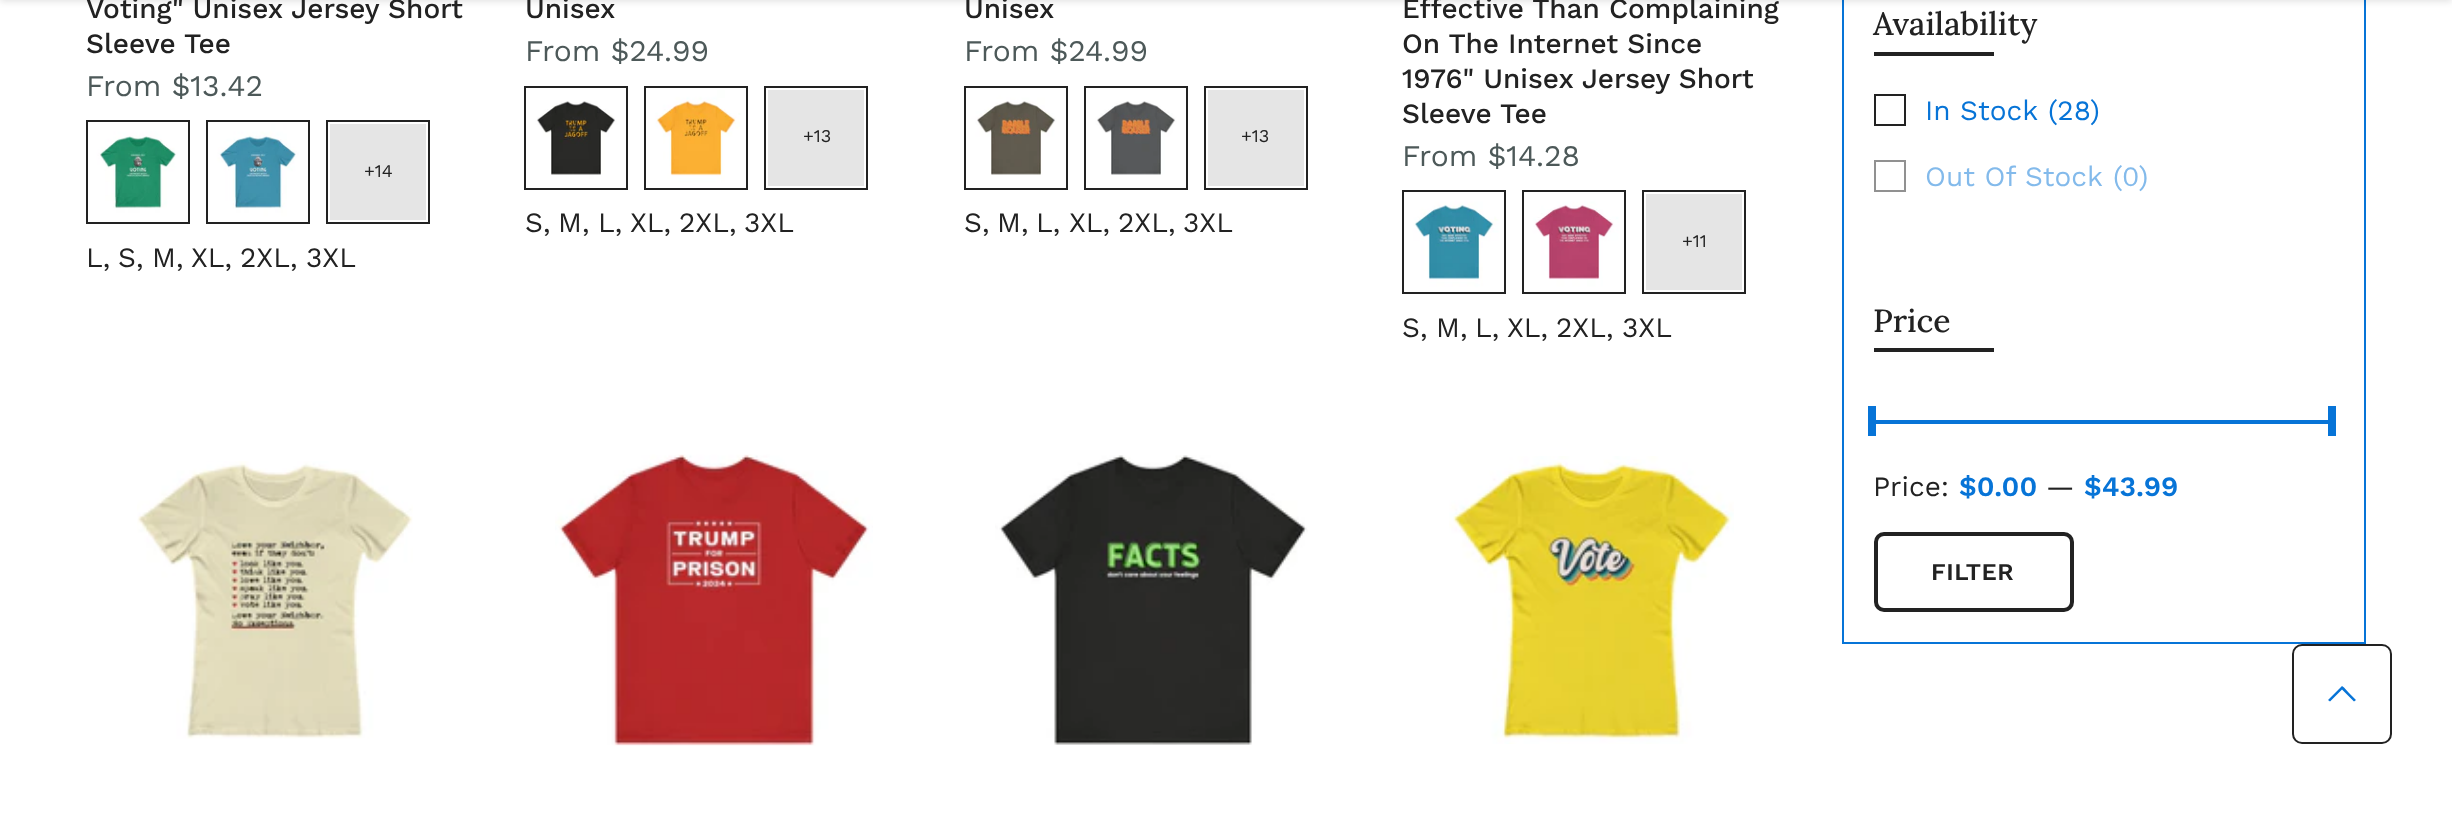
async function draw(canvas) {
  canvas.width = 2452;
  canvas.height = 823;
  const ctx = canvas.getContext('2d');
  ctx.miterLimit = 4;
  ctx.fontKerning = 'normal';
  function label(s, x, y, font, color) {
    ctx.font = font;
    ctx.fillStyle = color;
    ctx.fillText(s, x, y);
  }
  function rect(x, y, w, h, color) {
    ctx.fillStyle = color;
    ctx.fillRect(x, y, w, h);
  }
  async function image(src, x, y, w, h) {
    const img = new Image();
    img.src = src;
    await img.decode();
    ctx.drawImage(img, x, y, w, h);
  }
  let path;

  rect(0, 0, 2452, 823, '#fff');
  ctx.strokeStyle = '#0774d7';
  ctx.lineWidth = 2;
  ctx.strokeRect(1843, -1, 522, 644);
  ctx.fillStyle = '#0000001a';
  ctx.filter = 'blur(3px)';
  ctx.beginPath();
  ctx.rect(0, -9, 2452, 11);
  ctx.fill();
  ctx.filter = 'none';
  label('Voting" Unisex Jersey Short', 86, 18, '500 28px Work Sans', '#222');
  label('Sleeve Tee', 86, 53, '500 28px Work Sans', '#222');
  label('From $13.42', 86, 96, '30px Work Sans', '#4d5959');
  ctx.strokeStyle = '#222';
  ctx.strokeRect(87, 121, 102, 102);
  await image('assets/img1.png', 90, 124, 96, 96);
  ctx.strokeRect(207, 121, 102, 102);
  await image('assets/img2.png', 210, 124, 96, 96);
  ctx.strokeRect(327, 121, 102, 102);
  rect(330, 124, 96, 96, '#e5e5e5');
  label('+14', 364, 177, '18px Work Sans', '#222');
  label('L,', 86, 267, '28px Work Sans', '#222');
  label('S,', 118, 267, '28px Work Sans', '#222');
  label('M,', 152, 267, '28px Work Sans', '#222');
  label('XL,', 191, 267, '28px Work Sans', '#222');
  label('2XL,', 240, 267, '28px Work Sans', '#222');
  label('3XL', 306, 267, '28px Work Sans', '#222');
  label('Unisex', 525, 18, '500 28px Work Sans', '#222');
  label('From $24.99', 525, 61, '30px Work Sans', '#4d5959');
  ctx.strokeRect(525, 87, 102, 102);
  await image('assets/img3.png', 528, 90, 96, 96);
  ctx.strokeRect(645, 87, 102, 102);
  await image('assets/img4.png', 648, 90, 96, 96);
  ctx.strokeRect(765, 87, 102, 102);
  rect(768, 90, 96, 96, '#e5e5e5');
  label('+13', 803, 142, '18px Work Sans', '#222');
  label('S,', 525, 232, '28px Work Sans', '#222');
  label('M,', 558, 232, '28px Work Sans', '#222');
  label('L,', 598, 232, '28px Work Sans', '#222');
  label('XL,', 630, 232, '28px Work Sans', '#222');
  label('2XL,', 679, 232, '28px Work Sans', '#222');
  label('3XL', 744, 232, '28px Work Sans', '#222');
  label('Unisex', 964, 18, '500 28px Work Sans', '#222');
  label('From $24.99', 964, 61, '30px Work Sans', '#4d5959');
  ctx.strokeRect(965, 87, 102, 102);
  await image('assets/img5.png', 968, 90, 96, 96);
  ctx.strokeRect(1085, 87, 102, 102);
  await image('assets/img6.png', 1088, 90, 96, 96);
  ctx.strokeRect(1205, 87, 102, 102);
  rect(1208, 90, 96, 96, '#e5e5e5');
  label('+13', 1241, 142, '18px Work Sans', '#222');
  label('S,', 964, 232, '28px Work Sans', '#222');
  label('M,', 997, 232, '28px Work Sans', '#222');
  label('L,', 1036, 232, '28px Work Sans', '#222');
  label('XL,', 1069, 232, '28px Work Sans', '#222');
  label('2XL,', 1118, 232, '28px Work Sans', '#222');
  label('3XL', 1183, 232, '28px Work Sans', '#222');
  label('Effective Than Complaining', 1402, 18, '500 28px Work Sans', '#222');
  label('On The Internet Since', 1402, 53, '500 28px Work Sans', '#222');
  label('1976" Unisex Jersey Short', 1402, 88, '500 28px Work Sans', '#222');
  label('Sleeve Tee', 1402, 123, '500 28px Work Sans', '#222');
  label('From $14.28', 1402, 166, '30px Work Sans', '#4d5959');
  ctx.strokeRect(1403, 191, 102, 102);
  await image('assets/img7.png', 1406, 194, 96, 96);
  ctx.strokeRect(1523, 191, 102, 102);
  await image('assets/img8.png', 1526, 194, 96, 96);
  ctx.strokeRect(1643, 191, 102, 102);
  rect(1646, 194, 96, 96, '#e5e5e5');
  label('+11', 1682, 247, '18px Work Sans', '#222');
  label('S,', 1402, 337, '28px Work Sans', '#222');
  label('M,', 1436, 337, '28px Work Sans', '#222');
  label('L,', 1475, 337, '28px Work Sans', '#222');
  label('XL,', 1507, 337, '28px Work Sans', '#222');
  label('2XL,', 1556, 337, '28px Work Sans', '#222');
  label('3XL', 1622, 337, '28px Work Sans', '#222');
  await image('assets/img9.png', 137, 461, 276, 278);
  await image('assets/img10.png', 555, 454, 318, 292);
  await image('assets/img11.png', 995, 455, 313, 290);
  await image('assets/img12.png', 1449, 456, 285, 288);
  label('Availability', 1873, 35, '500 32px Lora', '#222');
  rect(1874, 52, 120, 4, '#222');
  ctx.strokeRect(1875, 95, 30, 30);
  label('In Stock', 1925, 120, '28px Work Sans', '#0774d7');
  label('(28)', 2048, 120, '28px Work Sans', '#0774d7');
  ctx.strokeStyle = '#919191';
  ctx.strokeRect(1875, 161, 30, 30);
  label('Out Of Stock', 1925, 186, '28px Work Sans', '#83baeb');
  label('(0)', 2113, 186, '28px Work Sans', '#83baeb');
  label('Price', 1873, 332, '500 32px Lora', '#222');
  rect(1874, 348, 120, 4, '#222');
  rect(1874, 420, 460, 4, '#0774d7');
  rect(1868, 406, 8, 30, '#0774d7');
  rect(2328, 406, 8, 30, '#0774d7');
  label('Price:', 1873, 496, '28px Work Sans', '#222');
  label('$0.00', 1959, 496, '600 28px Work Sans', '#0774d7');
  label('—', 2046, 496, '28px Work Sans', '#222');
  label('$43.99', 2084, 496, '600 28px Work Sans', '#0774d7');
  ctx.beginPath();
  ctx.roundRect(1876, 534, 196, 76, 8);
  ctx.strokeStyle = '#222';
  ctx.lineWidth = 4;
  ctx.stroke();
  ctx.letterSpacing = '0.5px';
  label('FILTER', 1931, 580, '600 24px Work Sans', '#222');
  ctx.beginPath();
  ctx.roundRect(2293, 645, 98, 98, 9);
  ctx.lineWidth = 2;
  ctx.stroke();
  ctx.fillStyle = '#0774d7';
  path = new Path2D('M2344 687.5L2342 686L2328 700L2330 701.5L2342 689.5L2354 701.5L2356 700L2349 693Z');
  ctx.fill(path);
}

draw(document.querySelector('canvas'));
